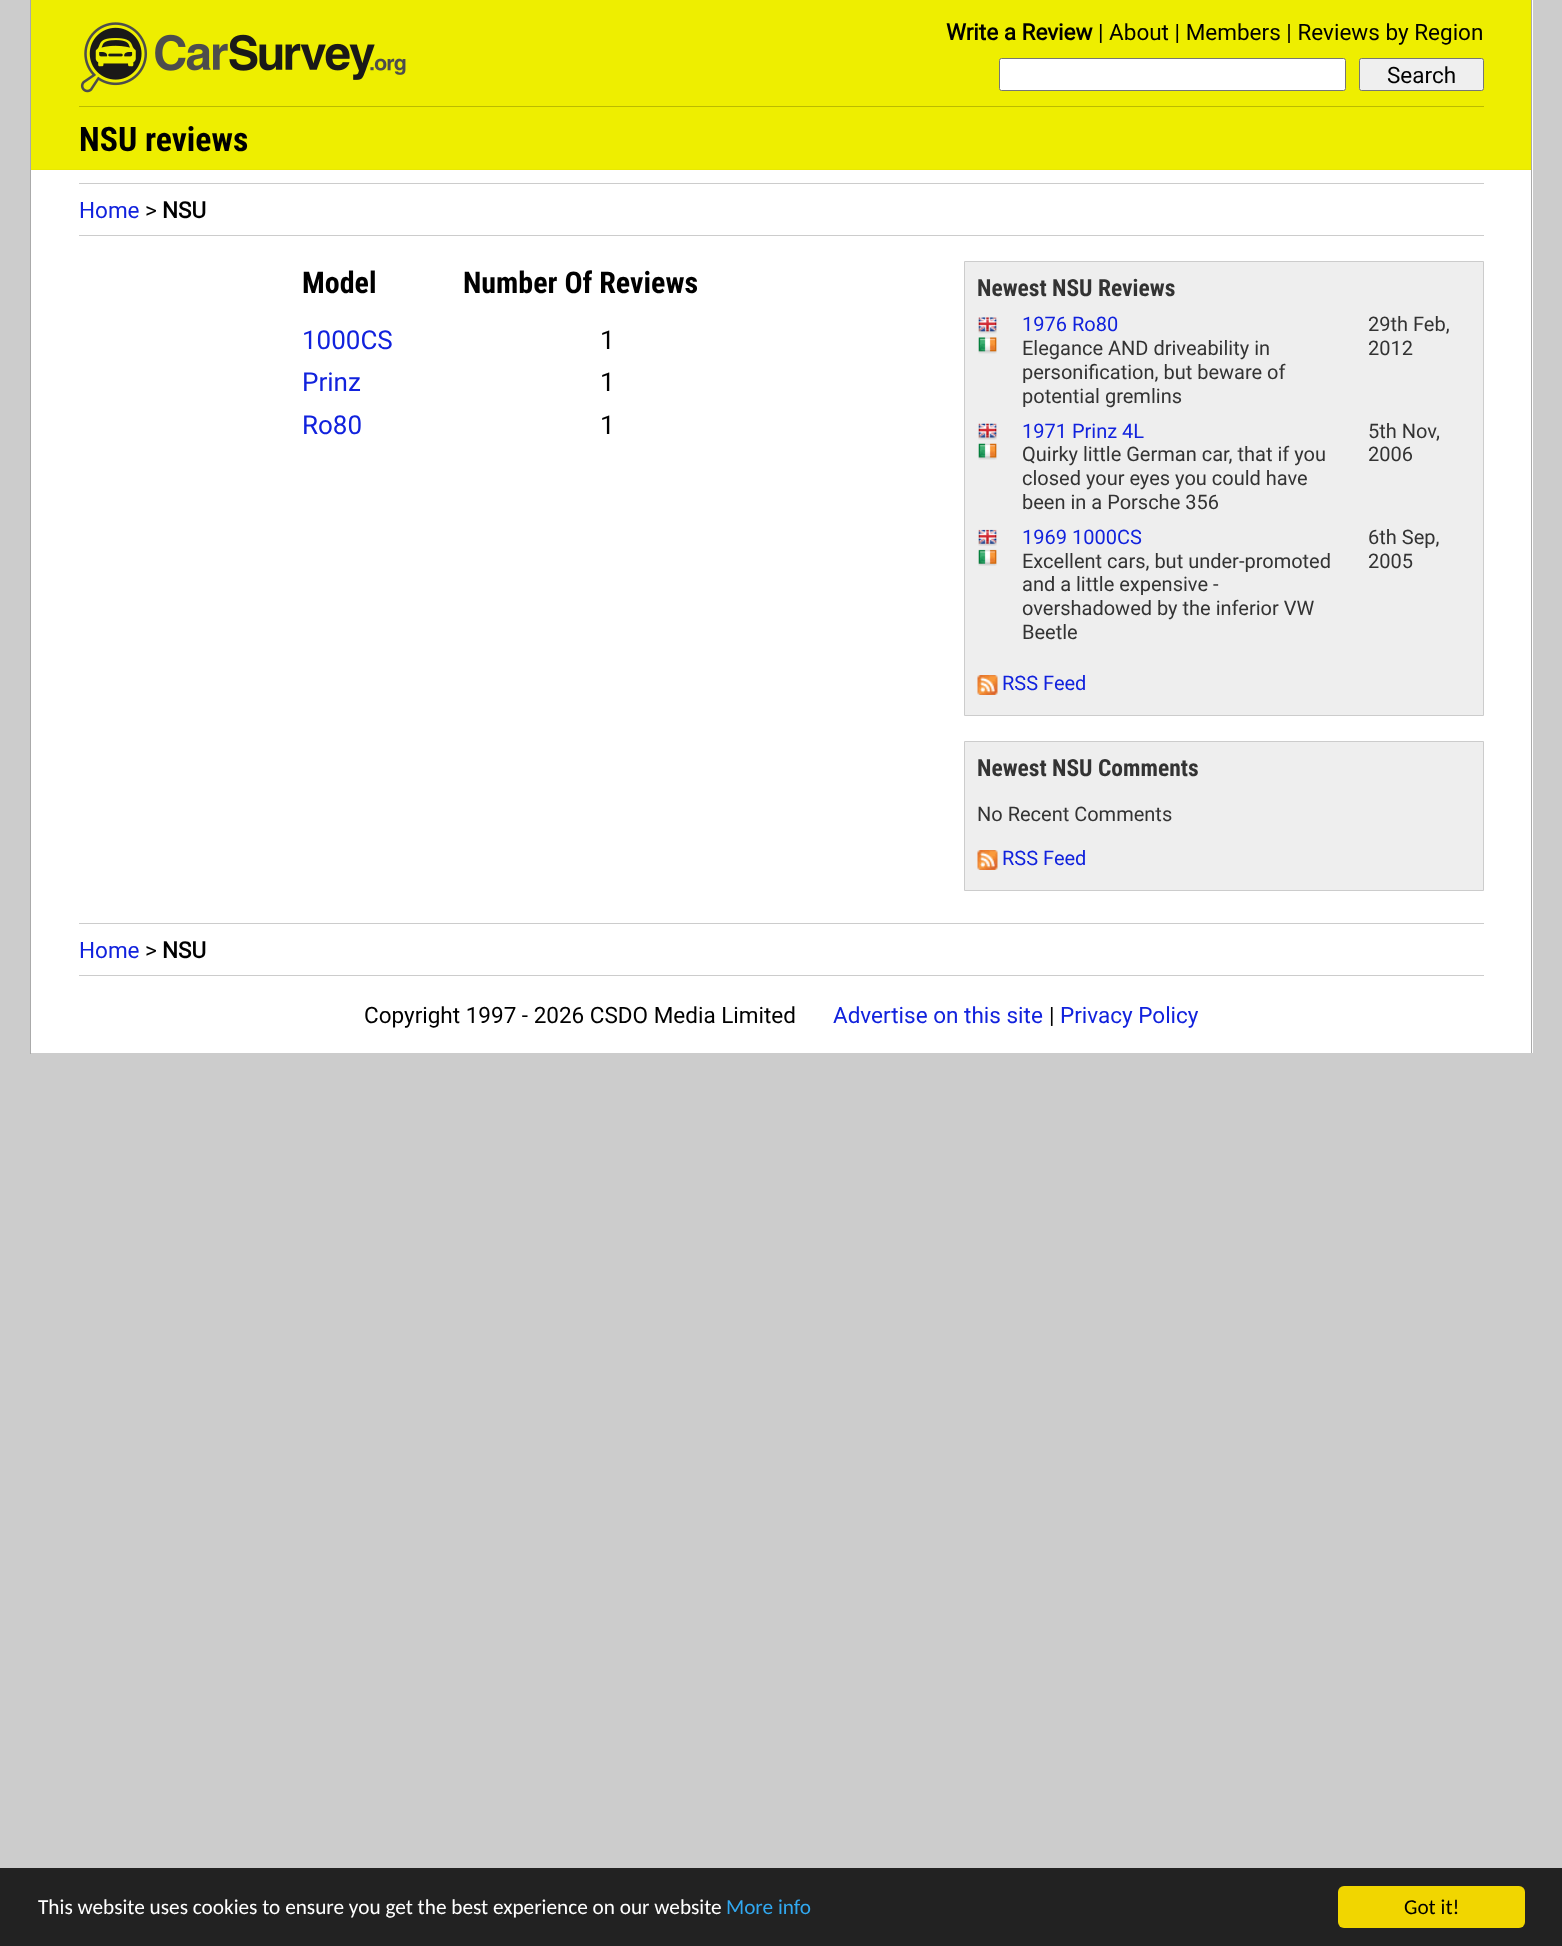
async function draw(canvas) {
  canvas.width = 1562;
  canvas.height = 1946;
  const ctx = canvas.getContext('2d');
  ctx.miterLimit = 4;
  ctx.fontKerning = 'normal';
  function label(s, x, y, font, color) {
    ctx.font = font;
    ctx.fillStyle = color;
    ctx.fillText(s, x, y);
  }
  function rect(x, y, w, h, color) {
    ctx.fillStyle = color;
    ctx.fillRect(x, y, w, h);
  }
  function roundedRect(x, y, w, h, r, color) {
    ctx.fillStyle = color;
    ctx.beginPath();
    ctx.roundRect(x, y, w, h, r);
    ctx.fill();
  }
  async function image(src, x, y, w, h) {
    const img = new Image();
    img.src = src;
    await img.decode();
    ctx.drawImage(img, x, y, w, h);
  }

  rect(0, 0, 1562, 1946, '#ccc');
  rect(31, 0, 1502, 1053, '#fff');
  rect(1531, 0, 1, 1054, '#aaa');
  rect(1531, 1053, 2, 1, '#ccc');
  rect(30, 0, 1, 1054, '#aaa');
  rect(31, 0, 1500, 169, '#ee0');
  rect(31, 169, 1500, 1, '#e8e800');
  await image('assets/img1.png', 80, 22, 326, 71);
  label('Write a Review', 946, 40, 'bold 22.5px Roboto', '#000');
  label('| About | Members | Reviews by Region', 1098, 40, '22.5px Roboto', '#000');
  ctx.fillStyle = '#fff';
  ctx.beginPath();
  ctx.roundRect(999.5, 58.5, 346, 32, 2);
  ctx.fill();
  ctx.strokeStyle = '#767676';
  ctx.stroke();
  ctx.fillStyle = '#efefef';
  ctx.beginPath();
  ctx.roundRect(1359.5, 58.5, 124, 32, 2);
  ctx.fill();
  ctx.stroke();
  label('Search', 1387, 83, '22.5px Roboto', '#000');
  rect(79, 106, 1405, 1, '#bb0');
  label('NSU reviews', 79, 151, 'bold 33.75px Roboto Condensed', '#000');
  rect(79, 183, 1405, 1, '#ccc');
  rect(79, 235, 1405, 1, '#ccc');
  label('Home', 79, 218, '22.5px Roboto', '#12d');
  label('>', 145, 218, '22.5px Roboto', '#000');
  label('NSU', 162, 218, 'bold 22.5px Roboto', '#000');
  label('Model', 302, 293, 'bold 30px Roboto Condensed', '#000');
  label('Number Of Reviews', 463, 293, 'bold 30px Roboto Condensed', '#000');
  label('1000CS', 302, 349, '26px Roboto', '#12d');
  label('1', 600, 349, '26px Roboto', '#000');
  label('Prinz', 302, 391, '26px Roboto', '#12d');
  label('1', 600, 391, '26px Roboto', '#000');
  label('Ro80', 302, 434, '26px Roboto', '#12d');
  label('1', 600, 434, '26px Roboto', '#000');
  ctx.fillStyle = '#eee';
  ctx.beginPath();
  ctx.rect(964.5, 261.5, 519, 454);
  ctx.fill();
  ctx.strokeStyle = '#ccc';
  ctx.stroke();
  label('Newest NSU Reviews', 977, 296, 'bold 23.5px Roboto Condensed', '#333');
  await image('assets/img2.png', 978, 317, 19, 17);
  await image('assets/img3.png', 978, 337, 19, 17);
  label('1976 Ro80', 1022, 331, '20px Roboto', '#12d');
  label('Elegance AND driveability in', 1022, 355, '20px Roboto', '#333');
  label('personification, but beware of', 1022, 379, '20px Roboto', '#333');
  label('potential gremlins', 1022, 403, '20px Roboto', '#333');
  label('29th Feb,', 1368, 331, '20px Roboto', '#333');
  label('2012', 1368, 355, '20px Roboto', '#333');
  await image('assets/img4.png', 978, 423, 19, 17);
  await image('assets/img5.png', 978, 443, 19, 17);
  label('1971 Prinz 4L', 1022, 438, '20px Roboto', '#12d');
  label('Quirky little German car, that if you', 1022, 461, '20px Roboto', '#333');
  label('closed your eyes you could have', 1022, 485, '20px Roboto', '#333');
  label('been in a Porsche 356', 1022, 509, '20px Roboto', '#333');
  label('5th Nov,', 1368, 438, '20px Roboto', '#333');
  label('2006', 1368, 461, '20px Roboto', '#333');
  await image('assets/img6.png', 978, 529, 19, 17);
  await image('assets/img7.png', 978, 549, 19, 17);
  label('1969 1000CS', 1022, 544, '20px Roboto', '#12d');
  label('Excellent cars, but under-promoted', 1022, 568, '20px Roboto', '#333');
  label('and a little expensive -', 1022, 591, '20px Roboto', '#333');
  label('overshadowed by the inferior VW', 1022, 615, '20px Roboto', '#333');
  label('Beetle', 1022, 639, '20px Roboto', '#333');
  label('6th Sep,', 1368, 544, '20px Roboto', '#333');
  label('2005', 1368, 568, '20px Roboto', '#333');
  await image('assets/img8.png', 977, 675, 21, 20);
  label('RSS Feed', 1002, 690, '20px Roboto', '#12d');
  ctx.fillStyle = '#eee';
  ctx.beginPath();
  ctx.rect(964.5, 741.5, 519, 149);
  ctx.fill();
  ctx.stroke();
  label('Newest NSU Comments', 977, 776, 'bold 23.5px Roboto Condensed', '#333');
  label('No Recent Comments', 977, 821, '20px Roboto', '#333');
  await image('assets/img8.png', 977, 850, 21, 20);
  label('RSS Feed', 1002, 865, '20px Roboto', '#12d');
  rect(79, 923, 1405, 1, '#ccc');
  rect(79, 975, 1405, 1, '#ccc');
  label('Home', 79, 958, '22.5px Roboto', '#12d');
  label('>', 145, 958, '22.5px Roboto', '#000');
  label('NSU', 162, 958, 'bold 22.5px Roboto', '#000');
  label('Copyright 1997 - 2026 CSDO Media Limited', 364, 1023, '22.5px Roboto', '#000');
  label('Advertise on this site', 833, 1023, '22.5px Roboto', '#12d');
  label('|', 1049, 1023, '22.5px Roboto', '#000');
  label('Privacy Policy', 1060, 1023, '22.5px Roboto', '#12d');
  rect(0, 1868, 1562, 78, '#222');
  label('This website uses cookies to ensure you get the best experience on our website', 38, 1914, '21.25px Carlito', '#fff');
  label('More info', 726, 1914, '21.25px Carlito', '#31a8f0');
  roundedRect(1338, 1886, 187, 42, 6, '#f1d600');
  label('Got it!', 1404, 1914, '21.25px Carlito', '#000');
}

draw(document.querySelector('canvas'));
